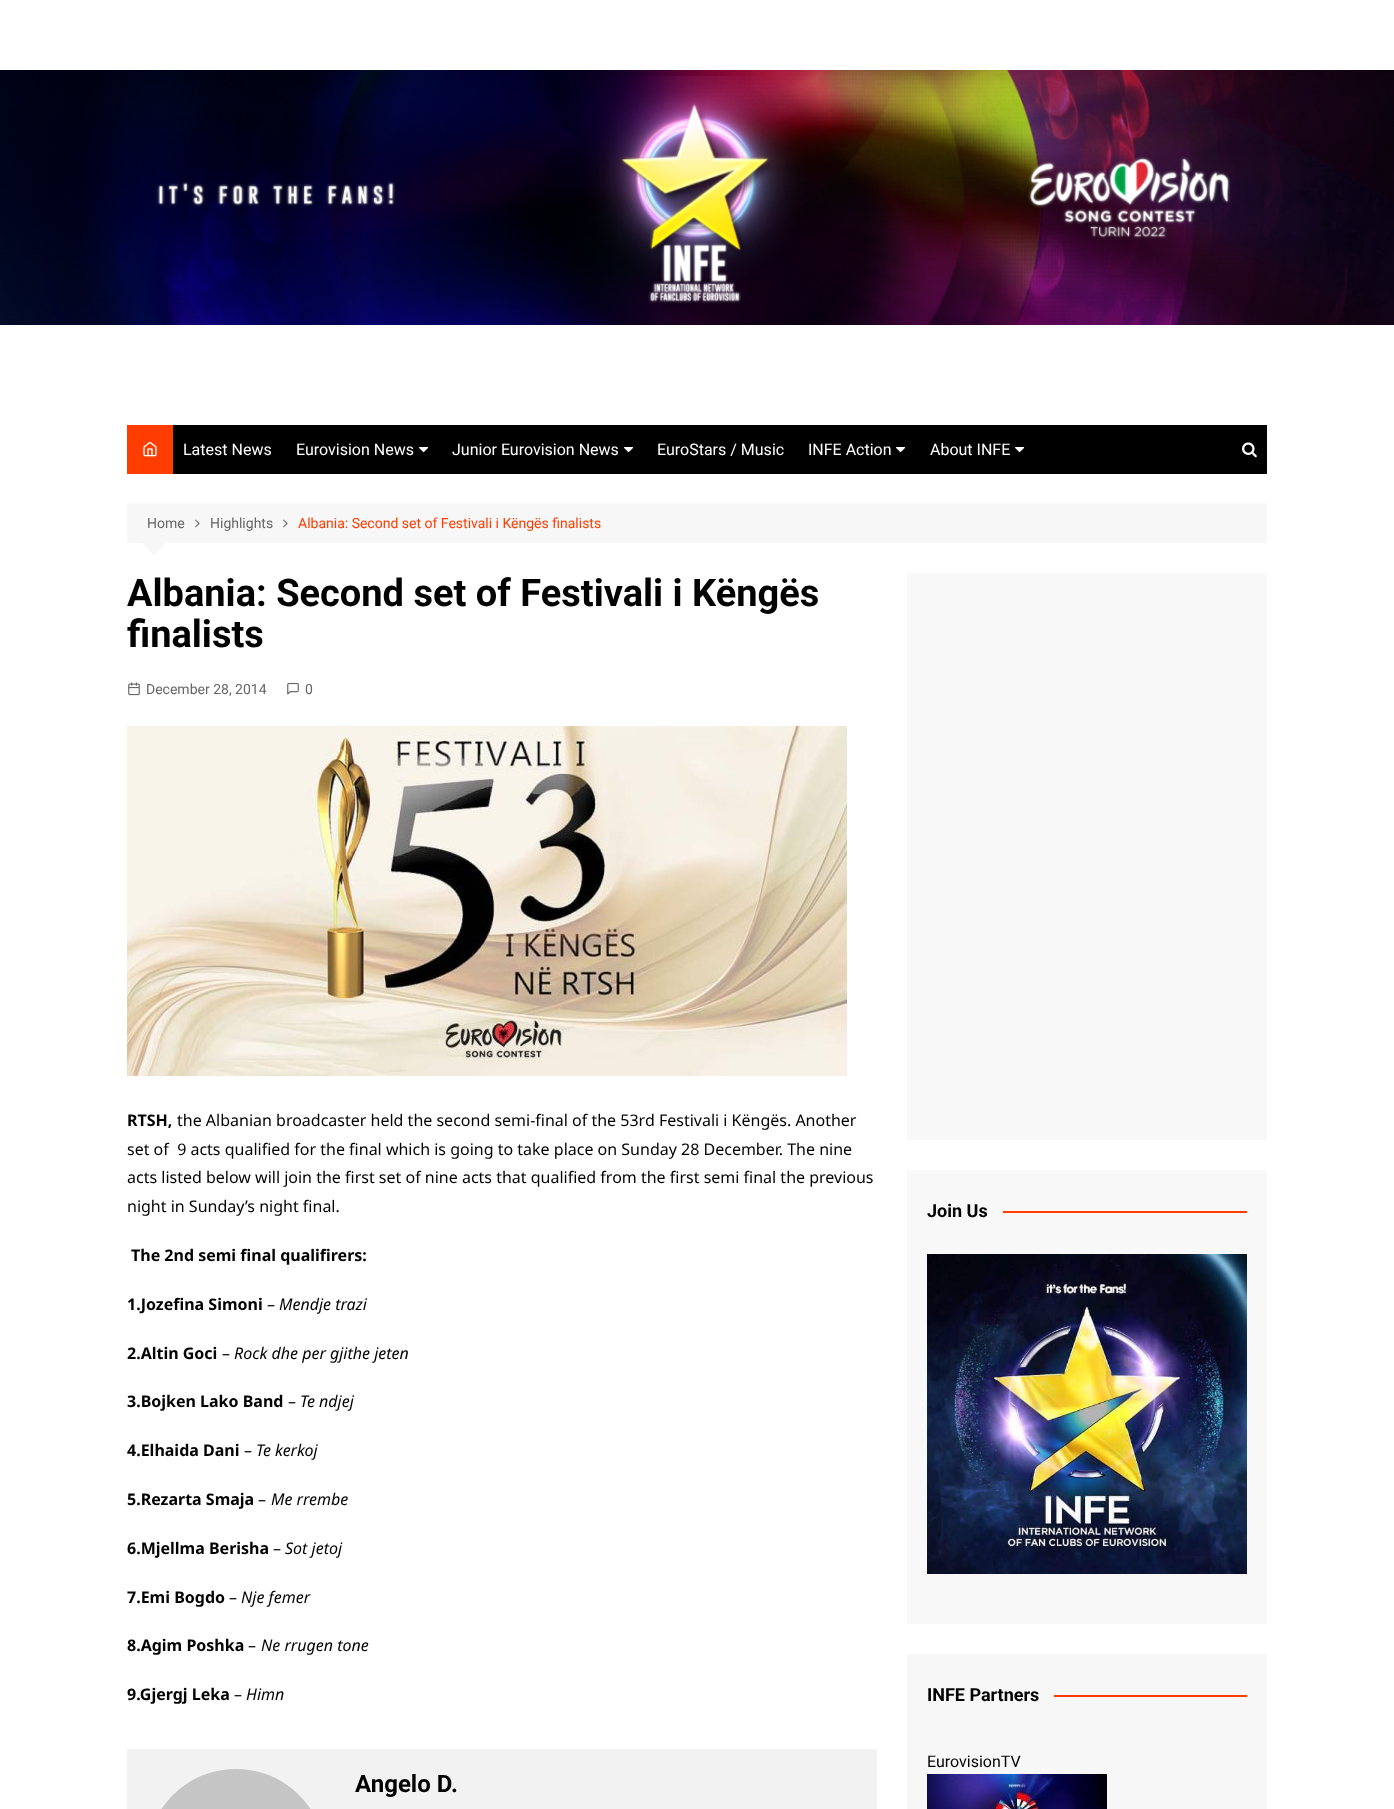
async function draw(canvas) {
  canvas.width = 1394;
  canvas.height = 1809;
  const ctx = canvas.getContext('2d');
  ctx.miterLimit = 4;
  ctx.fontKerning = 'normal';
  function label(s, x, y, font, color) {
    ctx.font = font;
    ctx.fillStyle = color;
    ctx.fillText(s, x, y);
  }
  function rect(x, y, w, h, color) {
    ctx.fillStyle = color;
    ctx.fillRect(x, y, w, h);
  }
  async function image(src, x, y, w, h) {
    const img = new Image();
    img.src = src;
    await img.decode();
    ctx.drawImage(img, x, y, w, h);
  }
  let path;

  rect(0, 0, 1394, 1809, '#fff');
  await image('assets/img1.png', 0, 70, 1394, 255);
  rect(173, 425, 1094, 49, '#000');
  rect(127, 425, 46, 49, '#ff3d00');
  await image('assets/img2.png', 143, 441, 14, 16);
  label('Latest News', 183, 455, '16px Roboto', '#fff');
  label('Eurovision News', 296, 455, '16px Roboto', '#fff');
  await image('assets/img3.png', 419, 447, 10, 6);
  label('Junior Eurovision News', 452, 455, '16px Roboto', '#fff');
  await image('assets/img3.png', 624, 447, 10, 6);
  label('EuroStars / Music', 657, 455, '16px Roboto', '#fff');
  label('INFE Action', 808, 455, '16px Roboto', '#fff');
  await image('assets/img3.png', 896, 447, 10, 6);
  label('About INFE', 930, 455, '16px Roboto', '#fff');
  await image('assets/img3.png', 1015, 447, 10, 6);
  await image('assets/img4.png', 1242, 442, 15, 16);
  rect(127, 503, 1140, 40, '#f7f7f7');
  label('Home', 147, 528, '14px Roboto', '#666');
  await image('assets/img5.png', 195, 519, 5, 9);
  label('Highlights', 210, 528, '14px Roboto', '#666');
  await image('assets/img5.png', 283, 519, 5, 9);
  label('Albania: Second set of Festivali i Këngës finalists', 298, 528, '14px Roboto', '#ff3d00');
  ctx.fillStyle = '#f7f7f7';
  path = new Path2D('M142 542.5H166L154 555.5Z');
  ctx.fill(path);
  label('Albania: Second set of Festivali i Këngës', 127, 606, 'bold 38px Roboto', '#010101');
  label('finalists', 127, 647, 'bold 38px Roboto', '#010101');
  await image('assets/img6.png', 128, 682, 12, 14);
  label('December 28, 2014', 146, 694, '14px Roboto', '#666');
  await image('assets/img7.png', 287, 682, 12, 13);
  label('0', 305, 694, '14px Roboto', '#666');
  await image('assets/img8.png', 127, 726, 720, 350);
  label('RTSH,', 127, 1126, 'bold 16px Noto Sans', '#010101');
  label('the Albanian broadcaster held the second semi-final of the 53rd Festivali i Këngës. Another', 177, 1126, '16px Noto Sans', '#010101');
  label('set of  9 acts qualified for the final which is going to take place on Sunday 28 December. The nine', 127, 1155, '16px Noto Sans', '#010101');
  label('acts listed below will join the first set of nine acts that qualified from the first semi final the previous', 127, 1183, '16px Noto Sans', '#010101');
  label('night in Sunday’s night final.', 127, 1212, '16px Noto Sans', '#010101');
  label('The 2nd semi final qualifirers:', 131, 1261, 'bold 16px Noto Sans', '#010101');
  label('1.Jozefina Simoni', 127, 1310, 'bold 16px Noto Sans', '#010101');
  label('–', 267, 1310, '16px Noto Sans', '#010101');
  label('Mendje trazi', 279, 1310, 'italic 16px Noto Sans', '#010101');
  label('2.Altin Goci', 127, 1359, 'bold 16px Noto Sans', '#010101');
  label('–', 222, 1359, '16px Noto Sans', '#010101');
  label('Rock dhe per gjithe jeten', 234, 1359, 'italic 16px Noto Sans', '#010101');
  label('3.Bojken Lako Band', 127, 1407, 'bold 16px Noto Sans', '#010101');
  label('–', 288, 1407, '16px Noto Sans', '#010101');
  label('Te ndjej', 300, 1407, 'italic 16px Noto Sans', '#010101');
  label('4.Elhaida Dani', 127, 1456, 'bold 16px Noto Sans', '#010101');
  label('–', 244, 1456, '16px Noto Sans', '#010101');
  label('Te kerkoj', 256, 1456, 'italic 16px Noto Sans', '#010101');
  label('5.Rezarta Smaja', 127, 1505, 'bold 16px Noto Sans', '#010101');
  label('–', 258, 1505, '16px Noto Sans', '#010101');
  label('Me rrembe', 271, 1505, 'italic 16px Noto Sans', '#010101');
  label('6.Mjellma Berisha', 127, 1554, 'bold 16px Noto Sans', '#010101');
  label('–', 273, 1554, '16px Noto Sans', '#010101');
  label('Sot jetoj', 285, 1554, 'italic 16px Noto Sans', '#010101');
  label('7.Emi Bogdo', 127, 1603, 'bold 16px Noto Sans', '#010101');
  label('–', 229, 1603, '16px Noto Sans', '#010101');
  label('Nje femer', 241, 1603, 'italic 16px Noto Sans', '#010101');
  label('8.Agim Poshka', 127, 1651, 'bold 16px Noto Sans', '#010101');
  label('–', 248, 1651, '16px Noto Sans', '#010101');
  label('Ne rrugen tone', 261, 1651, 'italic 16px Noto Sans', '#010101');
  label('9.Gjergj Leka', 127, 1700, 'bold 16px Noto Sans', '#010101');
  label('–', 234, 1700, '16px Noto Sans', '#010101');
  label('Himn', 246, 1700, 'italic 16px Noto Sans', '#010101');
  rect(127, 1749, 750, 60, '#f2f2f2');
  await image('assets/img9.png', 161, 1769, 150, 40);
  label('Angelo D.', 355, 1792, 'bold 24px Roboto', '#010101');
  rect(907, 573, 360, 567, '#f8f8f8');
  rect(907, 1170, 360, 454, '#f8f8f8');
  label('Join Us', 927, 1217, 'bold 18px Roboto', '#010101');
  rect(1003, 1211, 244, 2, '#ff3d00');
  await image('assets/img10.png', 927, 1254, 320, 320);
  rect(907, 1654, 360, 155, '#f7f7f7');
  label('INFE Partners', 927, 1701, 'bold 18px Roboto', '#010101');
  rect(1054, 1695, 193, 2, '#ff3d00');
  label('EurovisionTV', 927, 1767, '16px Roboto', '#010101');
  await image('assets/img11.png', 927, 1774, 180, 35);
}

draw(document.querySelector('canvas'));
